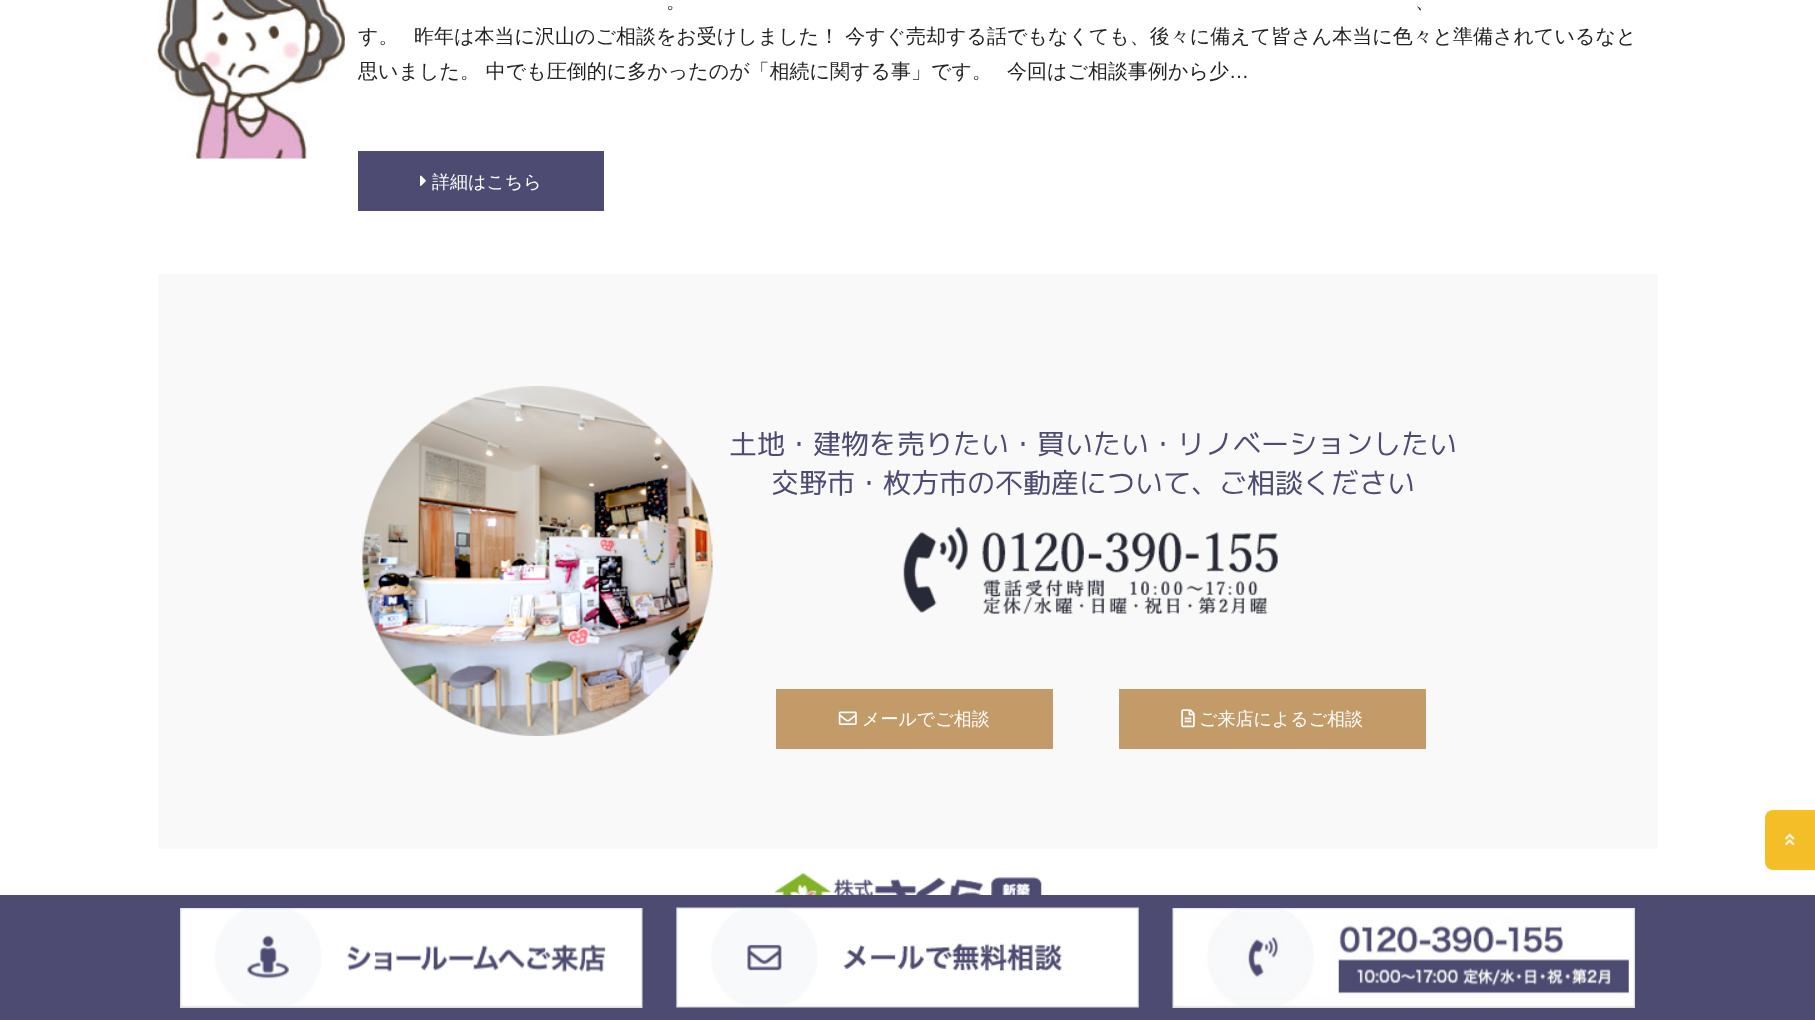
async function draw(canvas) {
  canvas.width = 1815;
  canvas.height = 1020;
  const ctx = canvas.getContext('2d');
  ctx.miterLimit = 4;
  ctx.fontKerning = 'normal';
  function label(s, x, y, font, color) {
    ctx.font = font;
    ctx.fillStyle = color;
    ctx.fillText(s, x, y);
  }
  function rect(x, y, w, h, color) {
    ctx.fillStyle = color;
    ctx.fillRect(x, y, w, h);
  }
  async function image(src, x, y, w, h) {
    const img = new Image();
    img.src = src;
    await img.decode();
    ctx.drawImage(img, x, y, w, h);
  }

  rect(0, 0, 1815, 1020, '#fff');
  await image('assets/img1.png', 157, 0, 188, 159);
  label('。', 666, 8, '500 20px WenQuanYi Zen Hei', '#222');
  label('、', 1415, 8, '500 20px WenQuanYi Zen Hei', '#222');
  label('す。', 358, 43, '500 20px WenQuanYi Zen Hei', '#222');
  label('昨年は本当に沢山のご相談をお受けしました！ 今すぐ売却する話でもなくても、後々に備えて皆さん本当に色々と準備されているなと', 414, 43, '500 20px WenQuanYi Zen Hei', '#222');
  label('思いました。 中でも圧倒的に多かったのが「相続に関する事」です。', 358, 78, '500 20px WenQuanYi Zen Hei', '#222');
  label('今回はご相談事例から少', 1007, 78, '500 20px WenQuanYi Zen Hei', '#222');
  label('…', 1229, 78, '20px Liberation Sans', '#222');
  rect(358, 151, 246, 60, '#4d4b72');
  await image('assets/img2.png', 420, 175, 6, 11);
  label('詳細はこちら', 432, 188, '500 18px WenQuanYi Zen Hei', '#fff');
  rect(158, 274, 1500, 575, '#f9f9f9');
  await image('assets/img3.png', 362, 386, 351, 350);
  label('土地・建物を売りたい・買いたい・リノベーションしたい', 729, 454, '28px "M PLUS 1p"', '#4d4b72');
  label('交野市・枚方市の不動産について、ご相談ください', 771, 493, '28px "M PLUS 1p"', '#4d4b72');
  await image('assets/img4.png', 903, 527, 375, 87);
  rect(776, 689, 277, 60, '#c29b68');
  await image('assets/img5.png', 838, 711, 19, 14);
  label('メールでご相談', 862, 725, '500 18px WenQuanYi Zen Hei', '#fff');
  rect(1119, 689, 307, 60, '#c29b68');
  await image('assets/img6.png', 1181, 709, 14, 19);
  label('ご来店によるご相談', 1199, 725, '500 18px WenQuanYi Zen Hei', '#fff');
  ctx.fillStyle = '#f3be28';
  ctx.beginPath();
  ctx.roundRect(1765, 810, 50, 60, [8, 0, 0, 8]);
  ctx.fill();
  await image('assets/img7.png', 1785, 833, 10, 13);
  await image('assets/img8.png', 775, 873, 267, 22);
  rect(0, 895, 1815, 125, '#4d4b72');
  await image('assets/img9.png', 180, 908, 463, 100);
  await image('assets/img10.png', 676, 907, 463, 101);
  await image('assets/img11.png', 1172, 908, 463, 100);
}

draw(document.querySelector('canvas'));
